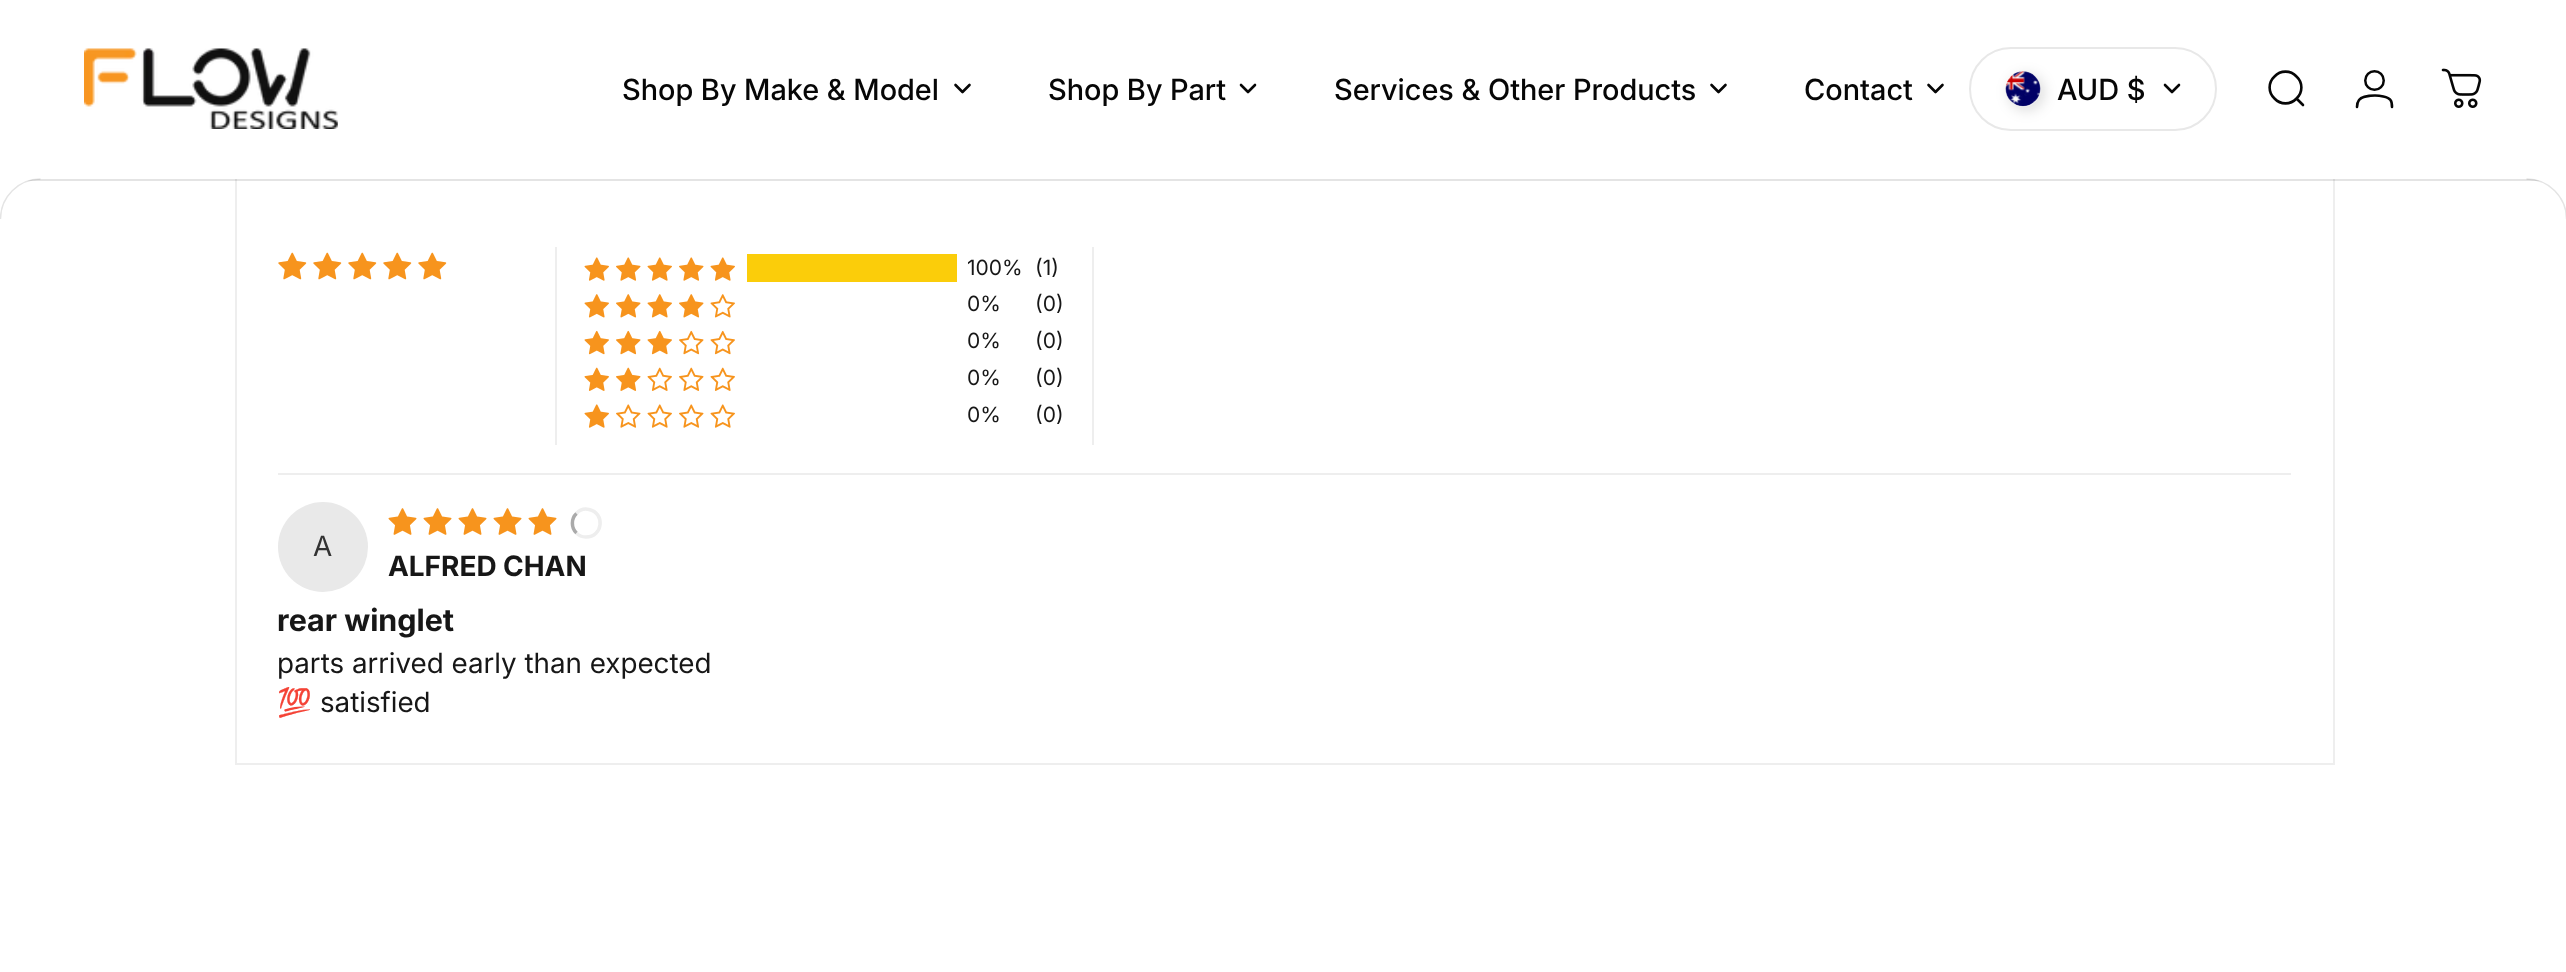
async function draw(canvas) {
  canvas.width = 2566;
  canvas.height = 972;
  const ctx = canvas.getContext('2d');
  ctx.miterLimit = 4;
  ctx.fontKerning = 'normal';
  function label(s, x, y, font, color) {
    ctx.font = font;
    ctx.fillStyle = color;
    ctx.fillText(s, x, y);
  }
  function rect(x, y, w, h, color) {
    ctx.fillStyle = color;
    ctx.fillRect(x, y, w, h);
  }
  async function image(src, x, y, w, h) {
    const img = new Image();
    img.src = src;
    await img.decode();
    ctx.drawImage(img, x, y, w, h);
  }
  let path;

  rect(0, 0, 2566, 972, '#fff');
  await image('assets/img1.png', 84, 48, 254, 81);
  label('Shop By Make & Model', 622, 100, '500 29.1px Inter', '#060606');
  path = new Path2D('M955.5 85L962.5 92L969.5 85');
  ctx.strokeStyle = '#060606';
  ctx.lineWidth = 2.6;
  ctx.lineCap = 'round';
  ctx.lineJoin = 'round';
  ctx.stroke(path);
  label('Shop By Part', 1048, 100, '500 29.1px Inter', '#060606');
  path = new Path2D('M1241 85L1248 92L1255 85');
  ctx.stroke(path);
  label('Services & Other Products', 1334, 100, '500 29.1px Inter', '#060606');
  path = new Path2D('M1711.5 85L1718.5 92L1725.5 85');
  ctx.stroke(path);
  label('Contact', 1804, 100, '500 29.1px Inter', '#060606');
  path = new Path2D('M1928.5 85L1935.5 92L1942.5 85');
  ctx.stroke(path);
  ctx.strokeStyle = '#eee';
  ctx.lineWidth = 2;
  ctx.lineJoin = 'miter';
  ctx.strokeRect(236, 131, 2098, 633);
  rect(34, 130, 2499, 49, '#fff');
  ctx.beginPath();
  ctx.roundRect(1970, 48, 246, 82, 41);
  ctx.strokeStyle = '#e8e8e8';
  ctx.stroke();
  ctx.fillStyle = '#06060626';
  ctx.filter = 'blur(7px)';
  ctx.beginPath();
  ctx.roundRect(2009, 75, 35, 35, 17.5);
  ctx.fill();
  ctx.filter = 'none';
  ctx.fillStyle = '#f2f2f2';
  ctx.beginPath();
  ctx.arc(2023.5, 89.5, 17.5, 0, 2 * Math.PI);
  ctx.fill();
  await image('assets/img2.png', 2005, 71, 36, 36);
  label('AUD $', 2057, 100, '500 29.1px Inter', '#060606');
  path = new Path2D('M2165 85L2172 92L2179 85');
  ctx.strokeStyle = '#060606';
  ctx.lineWidth = 2.6;
  ctx.lineJoin = 'round';
  ctx.stroke(path);
  path = new Path2D('M2303 105L2296.5 98.5M2296.5 98.5C2303 92.5 2303 82.5 2296.5 76.5C2290.5 70 2280.5 70 2274.5 76.5C2268 82.5 2268 92.5 2274.5 98.5C2280.5 105 2290.5 105 2296.5 98.5Z');
  ctx.lineJoin = 'miter';
  ctx.stroke(path);
  ctx.beginPath();
  ctx.arc(2374.5, 80.5, 9.25, 0, 2 * Math.PI);
  ctx.lineWidth = 2.5;
  ctx.stroke();
  path = new Path2D('M2375 95.5C2379 95.5 2388 96.5 2390.5 100C2392 102 2392 104 2392 107M2375 95.5C2370.5 95.5 2361.5 96.5 2359 100C2357.5 102 2357 104 2357 107');
  ctx.lineWidth = 2.6;
  ctx.stroke(path);
  await image('assets/img3.png', 2441, 68, 41, 40);
  rect(27, 179, 2513, 2, '#0606061c');
  ctx.fillStyle = '#fff';
  path = new Path2D('M40 178H0V219C0 197 18 179 40 179Z');
  ctx.fill(path, 'evenodd');
  path = new Path2D('M.5 219C.5 197 18.5 179 40.5 179');
  ctx.strokeStyle = '#0606061c';
  ctx.lineWidth = 1.4;
  ctx.lineCap = 'butt';
  ctx.stroke(path);
  path = new Path2D('M2527 178H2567V219C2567 197 2549 179 2527 179Z');
  ctx.fill(path, 'evenodd');
  path = new Path2D('M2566.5 219C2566.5 197 2548.5 179 2526.5 179');
  ctx.stroke(path);
  await image('assets/img4.png', 278, 252, 29, 28);
  await image('assets/img4.png', 313, 252, 29, 28);
  await image('assets/img4.png', 348, 252, 29, 28);
  await image('assets/img4.png', 383, 252, 29, 28);
  await image('assets/img4.png', 418, 252, 29, 28);
  rect(1092, 247, 2, 198, '#eee');
  rect(555, 247, 2, 198, '#eee');
  await image('assets/img5.png', 584, 257, 25, 24);
  await image('assets/img6.png', 616, 257, 25, 24);
  await image('assets/img5.png', 647, 257, 25, 24);
  await image('assets/img6.png', 679, 257, 25, 24);
  await image('assets/img5.png', 710, 257, 25, 24);
  rect(747, 254, 210, 28, '#fbcd0a');
  label('100%', 967, 275, '21px Inter', '#171717');
  label('(1)', 1035, 275, '21px Inter', '#171717');
  await image('assets/img7.png', 584, 294, 25, 24);
  await image('assets/img8.png', 616, 294, 25, 24);
  await image('assets/img7.png', 647, 294, 25, 24);
  await image('assets/img8.png', 679, 294, 25, 24);
  await image('assets/img9.png', 710, 294, 25, 24);
  label('0%', 967, 311, '21px Inter', '#171717');
  label('(0)', 1035, 311, '21px Inter', '#171717');
  await image('assets/img10.png', 584, 330, 25, 25);
  await image('assets/img11.png', 616, 330, 25, 25);
  await image('assets/img10.png', 647, 330, 25, 25);
  await image('assets/img12.png', 679, 330, 25, 25);
  await image('assets/img13.png', 710, 330, 25, 25);
  label('0%', 967, 348, '21px Inter', '#171717');
  label('(0)', 1035, 348, '21px Inter', '#171717');
  await image('assets/img14.png', 584, 367, 25, 24);
  await image('assets/img15.png', 616, 367, 25, 24);
  await image('assets/img16.png', 647, 367, 25, 24);
  await image('assets/img17.png', 679, 367, 25, 24);
  await image('assets/img16.png', 710, 367, 25, 24);
  label('0%', 967, 385, '21px Inter', '#171717');
  label('(0)', 1035, 385, '21px Inter', '#171717');
  await image('assets/img5.png', 584, 404, 25, 24);
  await image('assets/img18.png', 616, 404, 25, 24);
  await image('assets/img19.png', 647, 404, 25, 24);
  await image('assets/img18.png', 679, 404, 25, 24);
  await image('assets/img19.png', 710, 404, 25, 24);
  label('0%', 967, 422, '21px Inter', '#171717');
  label('(0)', 1035, 422, '21px Inter', '#171717');
  rect(278, 473, 2013, 2, '#eee');
  await image('assets/img20.png', 388, 508, 29, 27);
  await image('assets/img20.png', 423, 508, 29, 27);
  await image('assets/img20.png', 458, 508, 29, 27);
  await image('assets/img20.png', 493, 508, 29, 27);
  await image('assets/img20.png', 528, 508, 29, 27);
  path = new Path2D('M576.5 513.5C579.5 510 584.5 508.5 589 509.5C605.5 513 603 537 586 537C582.5 537 579 536 576.5 533');
  ctx.strokeStyle = '#eee';
  ctx.lineWidth = 3.5;
  ctx.stroke(path);
  path = new Path2D('M576.5 533C571 528 571 518.5 576.5 513.5');
  ctx.strokeStyle = '#aaa';
  ctx.stroke(path);
  ctx.fillStyle = '#e9e9e9';
  ctx.beginPath();
  ctx.arc(323, 547, 45, 0, 2 * Math.PI);
  ctx.fill();
  label('A', 313, 556, '28px "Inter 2"', '#333');
  label('ALFRED CHAN', 388, 576, 'bold 28px Inter', '#171717');
  label('rear winglet', 277, 631, 'bold 30.75px "Inter 2"', '#171717');
  label('parts arrived early than expected', 277, 673, '28px "Inter 2"', '#171717');
  ctx.save();
  ctx.beginPath();
  ctx.rect(278, 474, 2013, 247);
  ctx.clip();
  label('💯', 277, 712, '28px Noto Color Emoji', '#171717');
  ctx.restore();
  label('satisfied', 320, 712, '28px "Inter 2"', '#171717');
}

draw(document.querySelector('canvas'));
